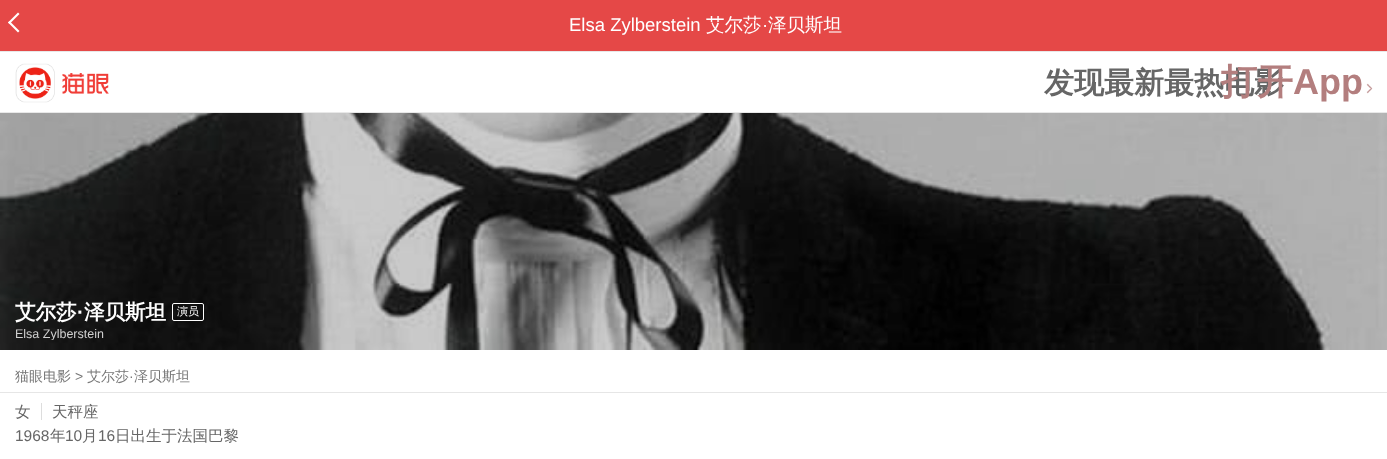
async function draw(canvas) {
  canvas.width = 1387;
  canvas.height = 459;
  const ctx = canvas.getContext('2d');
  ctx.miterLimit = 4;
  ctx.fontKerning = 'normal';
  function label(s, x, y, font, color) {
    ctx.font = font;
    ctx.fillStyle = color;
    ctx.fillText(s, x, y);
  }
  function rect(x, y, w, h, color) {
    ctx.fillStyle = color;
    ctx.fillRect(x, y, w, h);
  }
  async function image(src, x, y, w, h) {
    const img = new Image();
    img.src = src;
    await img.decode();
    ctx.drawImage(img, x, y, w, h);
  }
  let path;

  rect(0, 0, 1387, 459, '#fff');
  rect(0, 0, 1387, 51, '#e54847');
  ctx.fillStyle = '#fff';
  path = new Path2D('M9.5 21L19.5 31L18 32.5L8 22.5Z');
  ctx.fill(path);
  path = new Path2D('M18 12.5L19.5 14L9.5 24L8 22.5Z');
  ctx.fill(path);
  label('Elsa Zylberstein', 569, 31, '18.5px Liberation Sans', '#fff');
  label('艾尔莎', 706, 31, '500 18.5px WenQuanYi Zen Hei', '#fff');
  label('·', 762, 31, '18.5px Liberation Sans', '#fff');
  label('泽贝斯坦', 768, 31, '500 18.5px WenQuanYi Zen Hei', '#fff');
  rect(0, 51, 1387, 1, '#e8e8e8');
  rect(0, 112, 1387, 1, '#e8e8e8');
  await image('assets/img1.png', 15, 63, 94, 40);
  label('发现最新最热电影', 1044, 93, 'bold 30px WenQuanYi Zen Hei', '#666');
  label('打开', 1221, 94, 'bold 36px WenQuanYi Zen Hei', '#b37e7e');
  label('App', 1293, 94, 'bold 36px Liberation Sans', '#b37e7e');
  await image('assets/img2.png', 1366, 83, 7, 11);
  await image('assets/img3.png', 0, 113, 1387, 237);
  label('艾尔莎', 15, 319, 'bold 20.5px WenQuanYi Zen Hei', '#fff');
  label('·', 77, 319, 'bold 20.5px Liberation Sans', '#fff');
  label('泽贝斯坦', 84, 319, 'bold 20.5px WenQuanYi Zen Hei', '#fff');
  ctx.beginPath();
  ctx.roundRect(172.5, 303.5, 31, 17, 1.5);
  ctx.strokeStyle = '#fff';
  ctx.stroke();
  label('演员', 177, 315, '500 11px WenQuanYi Zen Hei', '#fff');
  ctx.save();
  ctx.beginPath();
  ctx.rect(15, 328, 189, 12);
  ctx.clip();
  label('Elsa Zylberstein', 15, 338, '12.5px Liberation Sans', '#d0d0d0');
  ctx.restore();
  label('猫眼电影', 15, 381, '500 14px WenQuanYi Zen Hei', '#777');
  label('>', 75, 381, '14px Liberation Sans', '#777');
  label('艾尔莎', 87, 381, '500 14px WenQuanYi Zen Hei', '#777');
  label('·', 129, 381, '14px Liberation Sans', '#777');
  label('泽贝斯坦', 134, 381, '500 14px WenQuanYi Zen Hei', '#777');
  rect(0, 392, 1387, 1, '#e6e6e6');
  label('女', 15, 417, '500 15.5px WenQuanYi Zen Hei', '#666');
  label('天秤座', 52, 417, '500 15.5px WenQuanYi Zen Hei', '#666');
  rect(41, 403, 1, 17, '#ddd');
  label('1968', 15, 441, '15.5px Liberation Sans', '#666');
  label('年', 50, 441, '500 15.5px WenQuanYi Zen Hei', '#666');
  label('10', 65, 441, '15.5px Liberation Sans', '#666');
  label('月', 82, 441, '500 15.5px WenQuanYi Zen Hei', '#666');
  label('16', 98, 441, '15.5px Liberation Sans', '#666');
  label('日出生于法国巴黎', 115, 441, '500 15.5px WenQuanYi Zen Hei', '#666');
}

draw(document.querySelector('canvas'));
